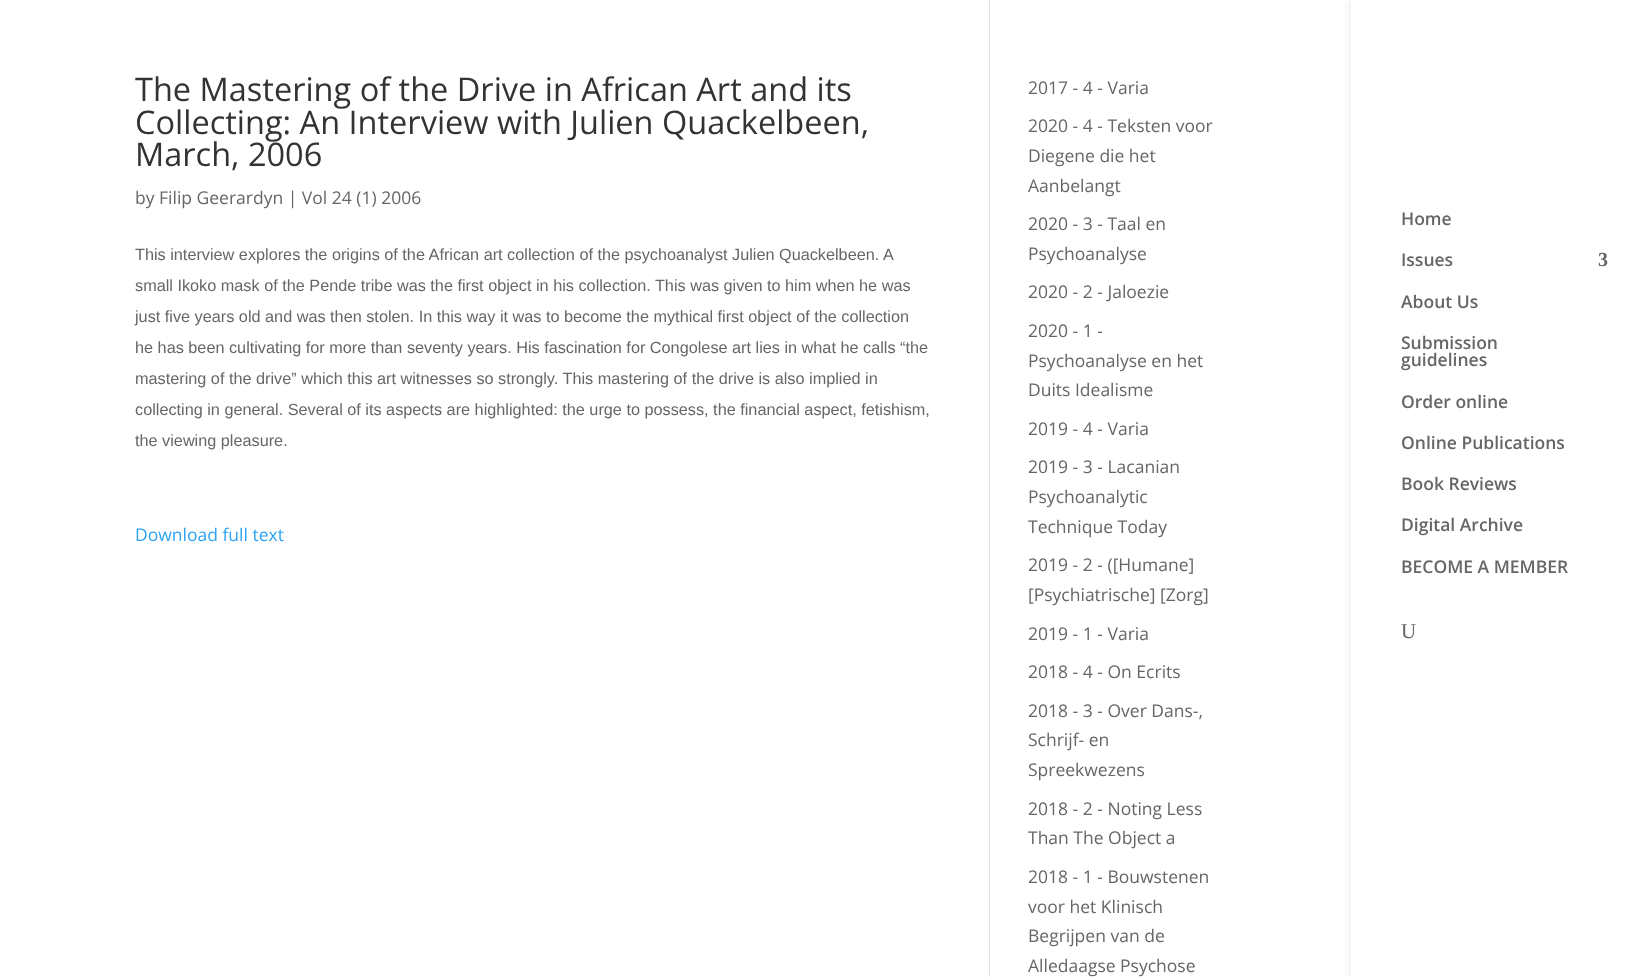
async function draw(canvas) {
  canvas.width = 1632;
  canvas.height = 977;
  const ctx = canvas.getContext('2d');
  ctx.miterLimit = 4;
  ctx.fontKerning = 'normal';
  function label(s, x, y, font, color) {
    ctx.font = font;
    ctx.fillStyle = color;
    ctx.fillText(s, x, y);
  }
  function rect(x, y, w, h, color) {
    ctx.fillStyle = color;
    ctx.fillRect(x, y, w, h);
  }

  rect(0, 0, 1632, 977, '#fff');
  rect(989, 0, 1, 977, '#e2e2e2');
  label('The Mastering of the Drive in African Art and its', 135, 101, '32.5px Open Sans', '#333');
  label('Collecting: An Interview with Julien Quackelbeen,', 135, 134, '32.5px Open Sans', '#333');
  label('March, 2006', 135, 166, '32.5px Open Sans', '#333');
  label('by Filip Geerardyn | Vol 24 (1) 2006', 135, 204, '17.5px Open Sans', '#666');
  label('This interview explores the origins of the African art collection of the psychoanalyst Julien Quackelbeen. A', 135, 260, '16.25px Liberation Sans', '#666');
  label('small Ikoko mask of the Pende tribe was the first object in his collection. This was given to him when he was', 135, 291, '16.25px Liberation Sans', '#666');
  label('just five years old and was then stolen. In this way it was to become the mythical first object of the collection', 135, 322, '16.25px Liberation Sans', '#666');
  label('he has been cultivating for more than seventy years. His fascination for Congolese art lies in what he calls “the', 135, 353, '16.25px Liberation Sans', '#666');
  label('mastering of the drive” which this art witnesses so strongly. This mastering of the drive is also implied in', 135, 384, '16.25px Liberation Sans', '#666');
  label('collecting in general. Several of its aspects are highlighted: the urge to possess, the financial aspect, fetishism,', 135, 415, '16.25px Liberation Sans', '#666');
  label('the viewing pleasure.', 135, 446, '16.25px Liberation Sans', '#666');
  label('Download full text', 135, 541, '17.5px Open Sans', '#2ea3f2');
  label('2017 - 4 - Varia', 1028, 94, '17.5px Open Sans', '#666');
  label('2020 - 4 - Teksten voor', 1028, 132, '17.5px Open Sans', '#666');
  label('Diegene die het', 1028, 162, '17.5px Open Sans', '#666');
  label('Aanbelangt', 1028, 192, '17.5px Open Sans', '#666');
  label('2020 - 3 - Taal en', 1028, 230, '17.5px Open Sans', '#666');
  label('Psychoanalyse', 1028, 260, '17.5px Open Sans', '#666');
  label('2020 - 2 - Jaloezie', 1028, 298, '17.5px Open Sans', '#666');
  label('2020 - 1 -', 1028, 337, '17.5px Open Sans', '#666');
  label('Psychoanalyse en het', 1028, 367, '17.5px Open Sans', '#666');
  label('Duits Idealisme', 1028, 396, '17.5px Open Sans', '#666');
  label('2019 - 4 - Varia', 1028, 435, '17.5px Open Sans', '#666');
  label('2019 - 3 - Lacanian', 1028, 473, '17.5px Open Sans', '#666');
  label('Psychoanalytic', 1028, 503, '17.5px Open Sans', '#666');
  label('Technique Today', 1028, 533, '17.5px Open Sans', '#666');
  label('2019 - 2 - ([Humane]', 1028, 571, '17.5px Open Sans', '#666');
  label('[Psychiatrische] [Zorg]', 1028, 601, '17.5px Open Sans', '#666');
  label('2019 - 1 - Varia', 1028, 640, '17.5px Open Sans', '#666');
  label('2018 - 4 - On Ecrits', 1028, 678, '17.5px Open Sans', '#666');
  label('2018 - 3 - Over Dans-,', 1028, 717, '17.5px Open Sans', '#666');
  label('Schrijf- en', 1028, 746, '17.5px Open Sans', '#666');
  label('Spreekwezens', 1028, 776, '17.5px Open Sans', '#666');
  label('2018 - 2 - Noting Less', 1028, 815, '17.5px Open Sans', '#666');
  label('Than The Object a', 1028, 844, '17.5px Open Sans', '#666');
  label('2018 - 1 - Bouwstenen', 1028, 883, '17.5px Open Sans', '#666');
  label('voor het Klinisch', 1028, 913, '17.5px Open Sans', '#666');
  label('Begrijpen van de', 1028, 942, '17.5px Open Sans', '#666');
  label('Alledaagse Psychose', 1028, 972, '17.5px Open Sans', '#666');
  ctx.fillStyle = '#0000001a';
  ctx.filter = 'blur(4.5px)';
  ctx.beginPath();
  ctx.rect(1351, 0, 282, 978);
  ctx.fill();
  ctx.filter = 'none';
  rect(1351, 0, 281, 977, '#fff');
  label('Home', 1401, 225, '600 17.5px Open Sans', '#666');
  label('Issues', 1401, 266, '600 17.5px Open Sans', '#666');
  label('3', 1598, 266, 'bold 20px Liberation Serif', '#666');
  label('About Us', 1401, 308, '600 17.5px Open Sans', '#666');
  label('Submission', 1401, 349, '600 17.5px Open Sans', '#666');
  label('guidelines', 1401, 366, '600 17.5px Open Sans', '#666');
  label('Order online', 1401, 408, '600 17.5px Open Sans', '#666');
  label('Online Publications', 1401, 449, '600 17.5px Open Sans', '#666');
  label('Book Reviews', 1401, 490, '600 17.5px Open Sans', '#666');
  label('Digital Archive', 1401, 531, '600 17.5px Open Sans', '#666');
  label('BECOME A MEMBER', 1401, 573, '600 17.5px Open Sans', '#666');
  label('U', 1401, 638, '21px Liberation Serif', '#666');
}

draw(document.querySelector('canvas'));
